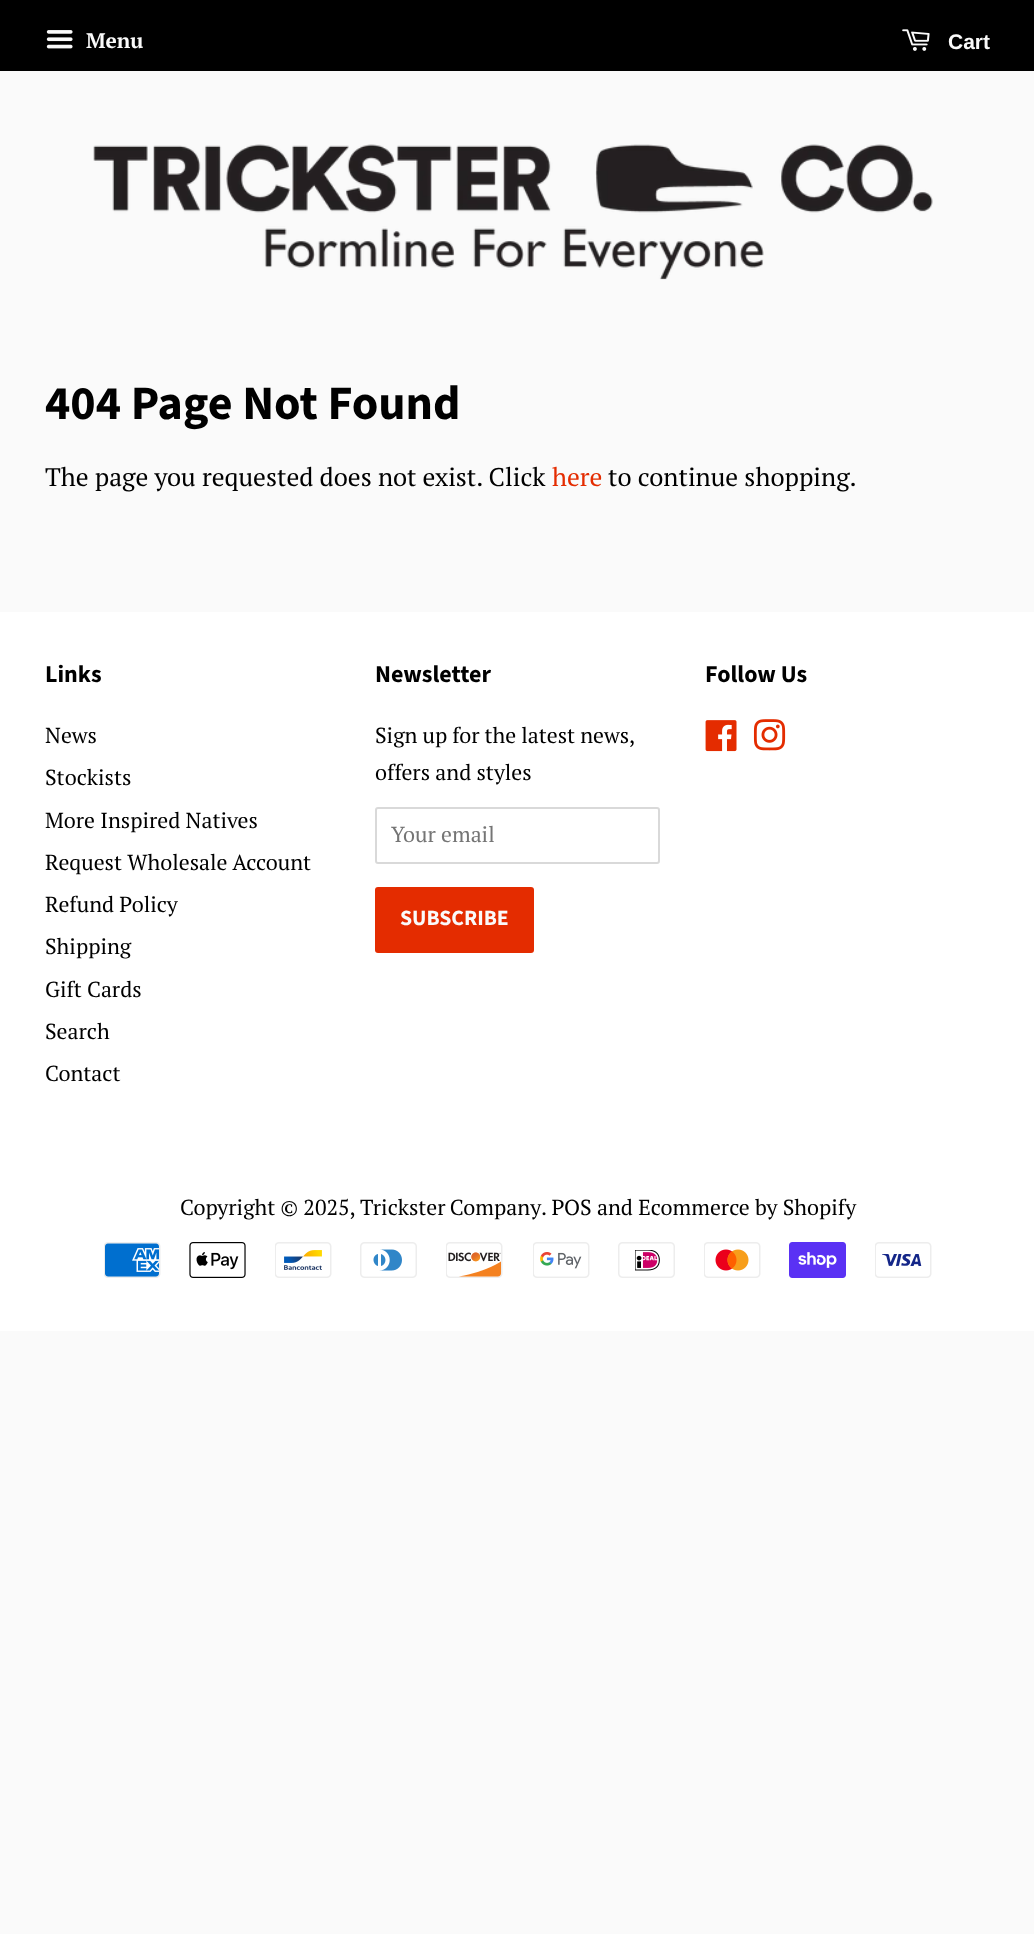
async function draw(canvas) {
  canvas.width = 1034;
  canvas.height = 1934;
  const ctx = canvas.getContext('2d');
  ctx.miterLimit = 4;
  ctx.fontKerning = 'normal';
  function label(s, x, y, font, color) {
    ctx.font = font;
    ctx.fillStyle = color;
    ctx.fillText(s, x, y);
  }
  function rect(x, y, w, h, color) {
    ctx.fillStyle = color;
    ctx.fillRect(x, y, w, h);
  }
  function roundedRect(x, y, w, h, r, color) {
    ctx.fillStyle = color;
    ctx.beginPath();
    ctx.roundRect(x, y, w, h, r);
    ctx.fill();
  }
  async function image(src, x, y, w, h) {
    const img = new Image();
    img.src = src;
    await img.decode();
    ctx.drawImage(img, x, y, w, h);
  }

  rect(0, 0, 1034, 1934, '#fafafa');
  rect(0, 0, 1034, 71, '#000');
  await image('assets/img1.png', 46, 30, 27, 19);
  label('Menu', 86, 48, 'bold 21px PT Serif', '#fafafa');
  await image('assets/img2.png', 902, 29, 28, 22);
  label('Cart', 948, 49, 'bold 21px Liberation Sans', '#fafafa');
  await image('assets/img3.png', 93, 144, 840, 136);
  label('404 Page Not Found', 45, 419, 'bold 48px Source Sans Pro', '#000');
  label('The page you requested does not exist. Click', 45, 486, '25.5px PT Serif', '#000');
  label('here', 552, 486, '25.5px PT Serif', '#e42c00');
  label('to continue shopping.', 608, 486, '25.5px PT Serif', '#000');
  rect(0, 612, 1034, 719, '#fff');
  label('Links', 45, 682, 'bold 24px Source Sans Pro', '#000');
  label('News', 45, 743, '21.7px PT Serif', '#000');
  label('Stockists', 45, 785, '21.7px PT Serif', '#000');
  label('More Inspired Natives', 45, 828, '21.7px PT Serif', '#000');
  label('Request Wholesale Account', 45, 870, '21.7px PT Serif', '#000');
  label('Refund Policy', 45, 912, '21.7px PT Serif', '#000');
  label('Shipping', 45, 954, '21.7px PT Serif', '#000');
  label('Gift Cards', 45, 997, '21.7px PT Serif', '#000');
  label('Search', 45, 1039, '21.7px PT Serif', '#000');
  label('Contact', 45, 1081, '21.7px PT Serif', '#000');
  label('Newsletter', 375, 682, 'bold 24px Source Sans Pro', '#000');
  ctx.wordSpacing = '-0.25px';
  label('Sign up for the latest news,', 375, 743, '21.7px PT Serif', '#000');
  ctx.wordSpacing = '0px';
  label('offers and styles', 375, 780, '21.7px PT Serif', '#000');
  ctx.beginPath();
  ctx.roundRect(376, 808, 283, 55, 2);
  ctx.strokeStyle = '#d9d9d9';
  ctx.lineWidth = 2;
  ctx.stroke();
  label('Your email', 391, 842, '21.7px PT Serif', '#757575');
  roundedRect(375, 887, 159, 66, 3, '#e42c00');
  label('SUBSCRIBE', 400, 925, 'bold 21.7px Source Sans Pro', '#fafafa');
  label('Follow Us', 705, 682, 'bold 24px Source Sans Pro', '#000');
  await image('assets/img4.png', 705, 720, 32, 32);
  await image('assets/img5.png', 753, 719, 33, 32);
  label('Copyright © 2025,', 180, 1215, '21.7px PT Serif', '#000');
  ctx.wordSpacing = '-1px';
  label('Trickster Company', 360, 1215, '21.7px PT Serif', '#000');
  ctx.wordSpacing = '0px';
  label('. POS and Ecommerce by Shopify', 541, 1215, '21.7px PT Serif', '#000');
  await image('assets/img6.png', 104, 1242, 57, 36);
  await image('assets/img7.png', 189, 1242, 57, 36);
  await image('assets/img8.png', 275, 1242, 57, 36);
  await image('assets/img9.png', 360, 1242, 57, 36);
  await image('assets/img10.png', 446, 1242, 57, 36);
  await image('assets/img11.png', 533, 1242, 57, 36);
  await image('assets/img12.png', 618, 1242, 57, 36);
  await image('assets/img13.png', 704, 1242, 57, 36);
  await image('assets/img14.png', 789, 1242, 57, 36);
  await image('assets/img15.png', 875, 1242, 57, 36);
}

draw(document.querySelector('canvas'));
